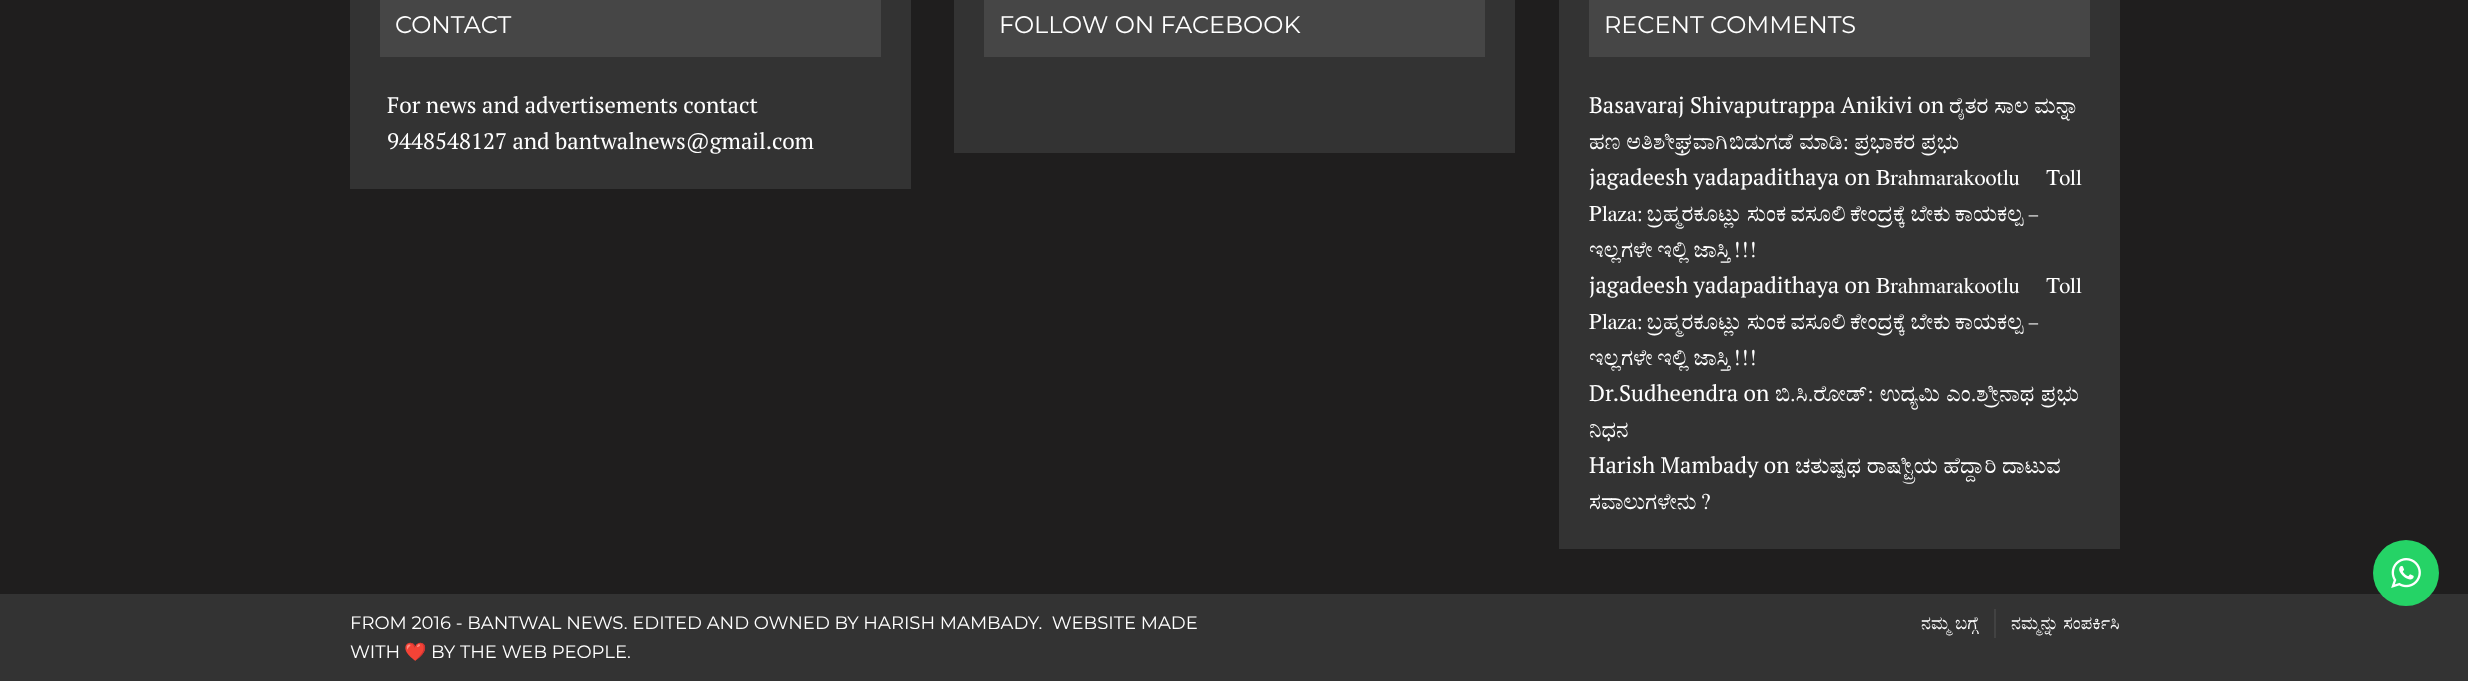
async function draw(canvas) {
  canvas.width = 2468;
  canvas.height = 681;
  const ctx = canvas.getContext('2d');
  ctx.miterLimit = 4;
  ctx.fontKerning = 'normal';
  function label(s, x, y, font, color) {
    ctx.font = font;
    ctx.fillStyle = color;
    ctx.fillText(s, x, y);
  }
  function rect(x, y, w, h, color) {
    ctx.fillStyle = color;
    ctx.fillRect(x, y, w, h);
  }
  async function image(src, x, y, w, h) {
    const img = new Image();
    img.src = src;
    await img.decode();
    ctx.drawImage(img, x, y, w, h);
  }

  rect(0, 0, 2468, 681, '#1f1e1e');
  rect(350, 0, 561, 189, '#333');
  rect(380, 0, 501, 57, '#464646');
  label('CONTACT', 395, 33, '24px Montserrat', '#fff');
  label('For news and advertisements contact', 387, 113, '22.5px PT Serif', '#fff');
  label('9448548127 and bantwalnews@gmail.com', 387, 149, '22.5px PT Serif', '#fff');
  rect(954, 0, 561, 153, '#333');
  rect(984, 0, 501, 57, '#464646');
  label('FOLLOW ON FACEBOOK', 999, 33, '24px Montserrat', '#fff');
  rect(1559, 0, 561, 549, '#333');
  rect(1589, 0, 501, 57, '#464646');
  label('RECENT COMMENTS', 1604, 33, '24px Montserrat', '#fff');
  label('Basavaraj Shivaputrappa Anikivi on', 1589, 113, '22.5px PT Serif', '#fff');
  label('ರೈತರ ಸಾಲ ಮನ್ನಾ', 1949, 113, '22.5px FreeSerif', '#fff');
  label('ಹಣ ಅತಿಶೀಘ್ರವಾಗಿ', 1589, 149, '22.5px FreeSerif', '#fff');
  ctx.wordSpacing = '0.5px';
  label('ಬಿಡುಗಡೆ ಮಾಡಿ: ಪ್ರಭಾಕರ ಪ್ರಭು', 1729, 149, '22.5px FreeSerif', '#fff');
  ctx.wordSpacing = '0px';
  label('jagadeesh yadapadithaya on', 1589, 185, '22.5px PT Serif', '#fff');
  ctx.wordSpacing = '21px';
  label('Brahmarakootlu Toll', 1876, 185, '22.5px FreeSerif', '#fff');
  ctx.wordSpacing = '-1.25px';
  label('Plaza: ಬ್ರಹ್ಮರಕೂಟ್ಲು ಸುಂಕ ವಸೂಲಿ ಕೇಂದ್ರಕ್ಕೆ ಬೇಕು ಕಾಯಕಲ್ಪ –', 1589, 221, '22.5px FreeSerif', '#fff');
  ctx.wordSpacing = '-1px';
  label('ಇಲ್ಲಗಳೇ ಇಲ್ಲಿ ಜಾಸ್ತಿ!!!', 1589, 257, '22.5px FreeSerif', '#fff');
  ctx.wordSpacing = '0px';
  label('jagadeesh yadapadithaya on', 1589, 293, '22.5px PT Serif', '#fff');
  ctx.wordSpacing = '21px';
  label('Brahmarakootlu Toll', 1876, 293, '22.5px FreeSerif', '#fff');
  ctx.wordSpacing = '-1.25px';
  label('Plaza: ಬ್ರಹ್ಮರಕೂಟ್ಲು ಸುಂಕ ವಸೂಲಿ ಕೇಂದ್ರಕ್ಕೆ ಬೇಕು ಕಾಯಕಲ್ಪ –', 1589, 329, '22.5px FreeSerif', '#fff');
  ctx.wordSpacing = '-1px';
  label('ಇಲ್ಲಗಳೇ ಇಲ್ಲಿ ಜಾಸ್ತಿ!!!', 1589, 365, '22.5px FreeSerif', '#fff');
  ctx.wordSpacing = '0px';
  label('Dr.Sudheendra on', 1589, 401, '22.5px PT Serif', '#fff');
  ctx.wordSpacing = '1px';
  label('ಬಿ.ಸಿ.ರೋಡ್: ಉದ್ಯಮಿ ಎಂ.ಶ್ರೀನಾಥ ಪ್ರಭು', 1775, 401, '22.5px FreeSerif', '#fff');
  ctx.wordSpacing = '0px';
  label('ನಿಧನ', 1589, 437, '22.5px FreeSerif', '#fff');
  label('Harish Mambady on', 1589, 473, '22.5px PT Serif', '#fff');
  label('ಚತುಷ್ಪಥ ರಾಷ್ಟ್ರೀಯ ಹೆದ್ದಾರಿ ದಾಟುವ', 1795, 473, '22.5px FreeSerif', '#fff');
  label('ಸವಾಲುಗಳೇನು?', 1589, 509, '22.5px FreeSerif', '#fff');
  rect(0, 594, 2468, 87, '#333');
  label('FROM 2016 - BANTWAL NEWS. EDITED AND OWNED BY HARISH MAMBADY.  WEBSITE MADE', 350, 629, '18px Montserrat', '#fff');
  label('WITH', 350, 658, '18px Montserrat', '#fff');
  label('❤️', 404, 658, '18px Noto Color Emoji', '#fff');
  label('BY THE WEB PEOPLE.', 431, 658, '18px Montserrat', '#fff');
  label('ನಮ್ಮ ಬಗ್ಗೆ', 1921, 629, '18px FreeSerif', '#fff');
  rect(1994, 609, 2, 29, '#424242');
  label('ನಮ್ಮನ್ನು ಸಂಪರ್ಕಿಸಿ', 2011, 629, '18px FreeSerif', '#fff');
  ctx.fillStyle = '#25d366';
  ctx.beginPath();
  ctx.arc(2406, 573, 33, 0, 2 * Math.PI);
  ctx.fill();
  await image('assets/img1.png', 2391, 558, 30, 30);
}

draw(document.querySelector('canvas'));
